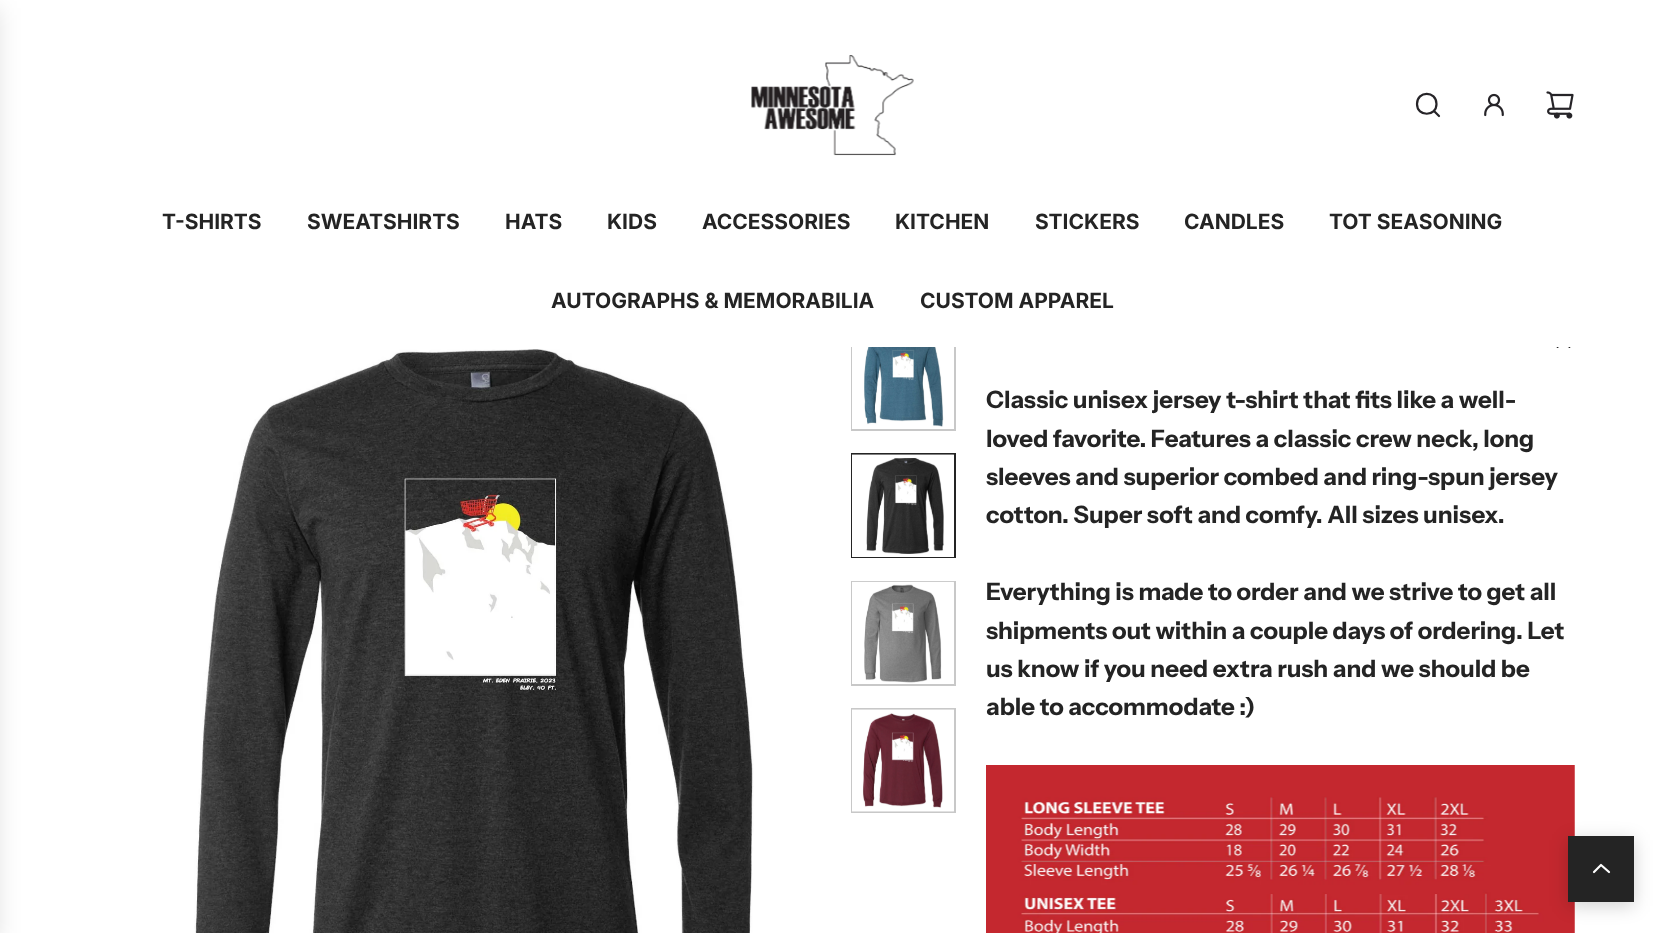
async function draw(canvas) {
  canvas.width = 1664;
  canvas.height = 933;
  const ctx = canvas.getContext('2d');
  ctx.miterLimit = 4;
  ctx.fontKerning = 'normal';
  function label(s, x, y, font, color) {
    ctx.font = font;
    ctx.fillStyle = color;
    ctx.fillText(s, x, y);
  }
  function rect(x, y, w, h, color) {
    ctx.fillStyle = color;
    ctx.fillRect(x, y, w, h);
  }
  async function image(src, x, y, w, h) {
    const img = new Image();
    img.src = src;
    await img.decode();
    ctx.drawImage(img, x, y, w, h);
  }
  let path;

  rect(0, 0, 1664, 933, '#fff');
  ctx.strokeStyle = '#c8c8c8';
  ctx.lineWidth = 2;
  ctx.strokeRect(852, 327, 103, 103);
  path = new Path2D('M1557.5 347L1563.5 341L1569.5 347');
  ctx.strokeStyle = '#242424';
  ctx.lineWidth = 1.8;
  ctx.lineCap = 'round';
  ctx.lineJoin = 'round';
  ctx.stroke(path);
  rect(851, 326, 720, 21, '#fff');
  ctx.fillStyle = '#0000001a';
  ctx.filter = 'blur(11px)';
  ctx.beginPath();
  ctx.rect(-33, 8, 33, 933);
  ctx.fill();
  ctx.filter = 'none';
  await image('assets/img1.png', 751, 55, 163, 101);
  path = new Path2D('M1434.5 111.5L1439 116M1417 104C1417 117 1436.5 117 1436.5 104C1436.5 90.5 1417 90.5 1417 104Z');
  ctx.strokeStyle = '#262428';
  ctx.lineWidth = 2.2;
  ctx.stroke(path);
  await image('assets/img2.png', 1484, 93, 20, 24);
  await image('assets/img3.png', 1546, 91, 28, 28);
  label('T-SHIRTS', 162, 229, 'bold 21px Inter', '#242424');
  label('SWEATSHIRTS', 307, 229, 'bold 21px Inter', '#242424');
  label('HATS', 505, 229, 'bold 21px Inter', '#242424');
  label('KIDS', 607, 229, 'bold 21px Inter', '#242424');
  label('ACCESSORIES', 702, 229, 'bold 21px Inter', '#242424');
  label('KITCHEN', 895, 229, 'bold 21px Inter', '#242424');
  label('STICKERS', 1035, 229, 'bold 21px Inter', '#242424');
  label('CANDLES', 1184, 229, 'bold 21px Inter', '#242424');
  label('TOT SEASONING', 1329, 229, 'bold 21px Inter', '#242424');
  label('AUTOGRAPHS & MEMORABILIA', 551, 308, 'bold 21px Inter', '#242424');
  label('CUSTOM APPAREL', 920, 308, 'bold 21px Inter', '#242424');
  await image('assets/img4.png', 194, 349, 560, 584);
  await image('assets/img5.png', 852, 347, 102, 82);
  ctx.strokeStyle = '#242424';
  ctx.lineWidth = 2;
  ctx.lineJoin = 'miter';
  ctx.strokeRect(852, 454, 103, 103);
  await image('assets/img6.png', 852, 454, 102, 100);
  ctx.strokeStyle = '#fff';
  ctx.lineWidth = 3;
  ctx.strokeRect(853.5, 456.5, 99, 99);
  ctx.strokeStyle = '#c8c8c8';
  ctx.lineWidth = 2;
  ctx.strokeRect(852, 582, 103, 103);
  await image('assets/img7.png', 852, 581, 102, 103);
  ctx.strokeRect(852, 709, 103, 103);
  await image('assets/img8.png', 852, 709, 102, 103);
  label('Classic unisex jersey t-shirt that fits like a well-', 986, 408, 'bold 24px Instrument Sans', '#242424');
  label('loved favorite. Features a classic crew neck, long', 986, 447, 'bold 24px Instrument Sans', '#242424');
  label('sleeves and superior combed and ring-spun jersey', 986, 485, 'bold 24px Instrument Sans', '#242424');
  label('cotton. Super soft and comfy. All sizes unisex.', 986, 523, 'bold 24px Instrument Sans', '#242424');
  label('Everything is made to order and we strive to get all', 986, 600, 'bold 24px Instrument Sans', '#242424');
  label('shipments out within a couple days of ordering. Let', 986, 639, 'bold 24px Instrument Sans', '#242424');
  label('us know if you need extra rush and we should be', 986, 677, 'bold 24px Instrument Sans', '#242424');
  label('able to accommodate :)', 986, 715, 'bold 24px Instrument Sans', '#242424');
  await image('assets/img9.png', 986, 765, 589, 168);
  ctx.fillStyle = '#0000002e';
  ctx.filter = 'blur(9px)';
  ctx.beginPath();
  ctx.rect(1568, 840, 66, 66);
  ctx.fill();
  ctx.filter = 'none';
  rect(1568, 836, 66, 66, '#242424');
  path = new Path2D('M1594 872L1601 865L1609 872');
  ctx.strokeStyle = '#fff';
  ctx.lineWidth = 2.2;
  ctx.lineJoin = 'round';
  ctx.stroke(path);
}

draw(document.querySelector('canvas'));
